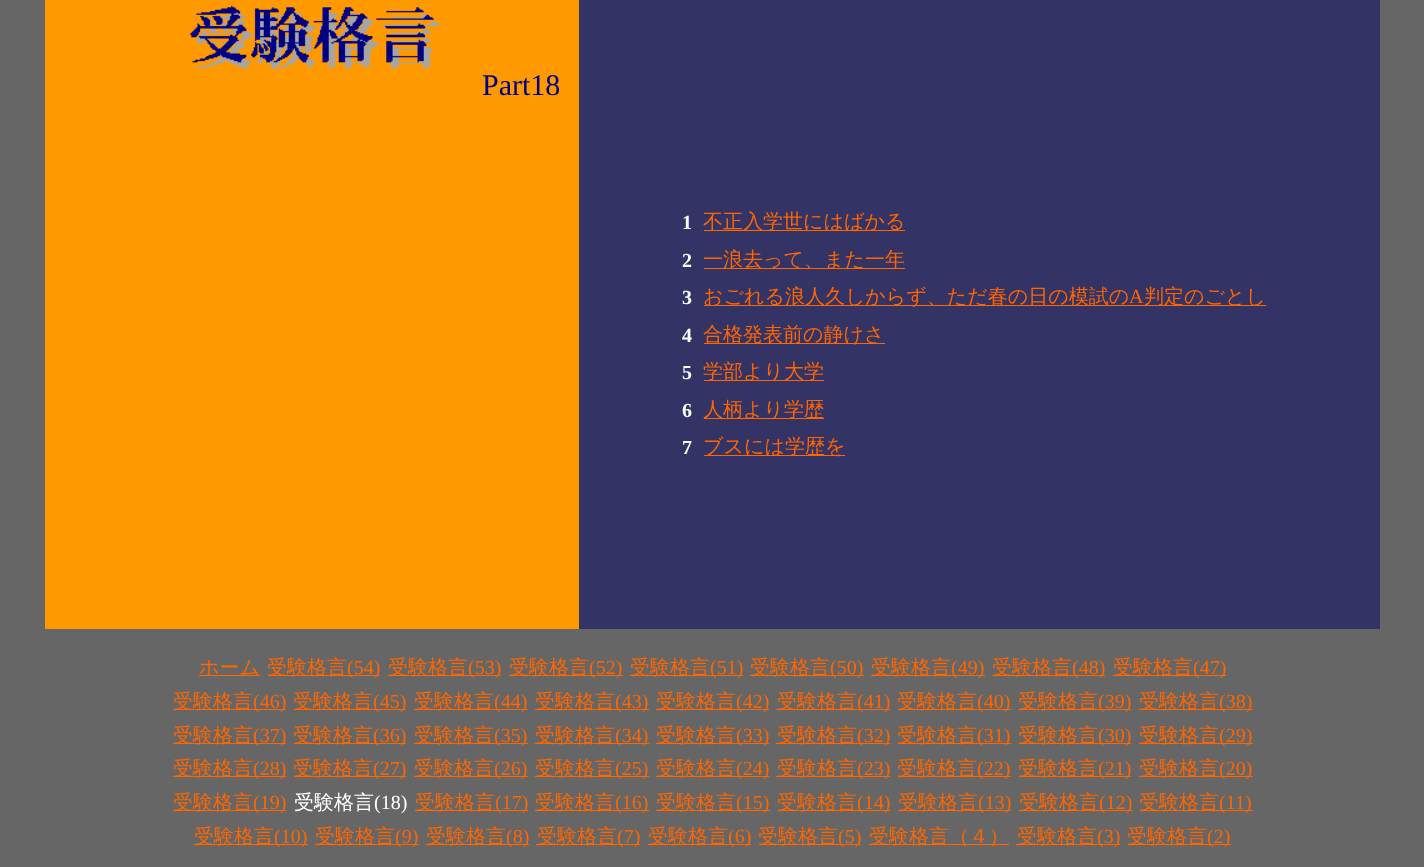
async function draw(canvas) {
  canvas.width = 1424;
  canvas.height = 867;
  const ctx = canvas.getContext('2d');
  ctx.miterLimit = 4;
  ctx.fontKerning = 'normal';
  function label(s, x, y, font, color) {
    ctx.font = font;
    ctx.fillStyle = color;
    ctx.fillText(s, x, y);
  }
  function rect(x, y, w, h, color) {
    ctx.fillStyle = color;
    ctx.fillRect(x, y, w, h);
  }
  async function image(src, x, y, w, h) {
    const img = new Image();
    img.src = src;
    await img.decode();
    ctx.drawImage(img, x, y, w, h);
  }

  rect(0, 0, 1424, 867, '#666');
  rect(45, 0, 534, 629, '#f90');
  await image('assets/img1.png', 189, 5, 252, 64);
  label('Part18', 482, 95, '30px Liberation Serif', '#000080');
  rect(579, 0, 801, 629, '#336');
  label('1', 682, 229, 'bold 20px Liberation Serif', '#fff');
  rect(704, 230, 201, 1, '#f60');
  label('不正入学世にはばかる', 703, 228, '500 20px WenQuanYi Zen Hei', '#f60');
  label('2', 682, 267, 'bold 20px Liberation Serif', '#fff');
  rect(704, 268, 201, 1, '#f60');
  label('一浪去って、また一年', 703, 266, '500 20px WenQuanYi Zen Hei', '#f60');
  label('3', 682, 304, 'bold 20px Liberation Serif', '#fff');
  rect(704, 305, 562, 1, '#f60');
  label('おごれる浪人久しからず、ただ春の日の模試の', 703, 303, '500 20px WenQuanYi Zen Hei', '#f60');
  label('A', 1129, 303, '20px Liberation Serif', '#f60');
  label('判定のごとし', 1144, 303, '500 20px WenQuanYi Zen Hei', '#f60');
  label('4', 682, 342, 'bold 20px Liberation Serif', '#fff');
  rect(704, 343, 181, 1, '#f60');
  label('合格発表前の静けさ', 703, 341, '500 20px WenQuanYi Zen Hei', '#f60');
  label('5', 682, 379, 'bold 20px Liberation Serif', '#fff');
  rect(704, 380, 120, 1, '#f60');
  label('学部より大学', 703, 378, '500 20px WenQuanYi Zen Hei', '#f60');
  label('6', 682, 417, 'bold 20px Liberation Serif', '#fff');
  rect(704, 418, 120, 1, '#f60');
  label('人柄より学歴', 703, 416, '500 20px WenQuanYi Zen Hei', '#f60');
  label('7', 682, 454, 'bold 20px Liberation Serif', '#fff');
  rect(704, 455, 141, 1, '#f60');
  label('ブスには学歴を', 703, 453, '500 20px WenQuanYi Zen Hei', '#f60');
  rect(199, 675, 61, 1, '#f60');
  label('ホーム', 199, 674, '500 20px WenQuanYi Zen Hei', '#f60');
  rect(268, 675, 112, 1, '#f60');
  label('受験格言', 267, 674, '500 20px WenQuanYi Zen Hei', '#f60');
  label('(54)', 347, 674, '20px Liberation Serif', '#f60');
  rect(388, 675, 113, 1, '#f60');
  label('受験格言', 388, 674, '500 20px WenQuanYi Zen Hei', '#f60');
  label('(53)', 468, 674, '20px Liberation Serif', '#f60');
  rect(509, 675, 114, 1, '#f60');
  label('受験格言', 509, 674, '500 20px WenQuanYi Zen Hei', '#f60');
  label('(52)', 589, 674, '20px Liberation Serif', '#f60');
  rect(630, 675, 113, 1, '#f60');
  label('受験格言', 630, 674, '500 20px WenQuanYi Zen Hei', '#f60');
  label('(51)', 710, 674, '20px Liberation Serif', '#f60');
  rect(750, 675, 114, 1, '#f60');
  label('受験格言', 750, 674, '500 20px WenQuanYi Zen Hei', '#f60');
  label('(50)', 830, 674, '20px Liberation Serif', '#f60');
  rect(871, 675, 114, 1, '#f60');
  label('受験格言', 871, 674, '500 20px WenQuanYi Zen Hei', '#f60');
  label('(49)', 951, 674, '20px Liberation Serif', '#f60');
  rect(993, 675, 112, 1, '#f60');
  label('受験格言', 992, 674, '500 20px WenQuanYi Zen Hei', '#f60');
  label('(48)', 1072, 674, '20px Liberation Serif', '#f60');
  rect(1113, 675, 113, 1, '#f60');
  label('受験格言', 1113, 674, '500 20px WenQuanYi Zen Hei', '#f60');
  label('(47)', 1193, 674, '20px Liberation Serif', '#f60');
  rect(173, 709, 113, 1, '#f60');
  label('受験格言', 173, 708, '500 20px WenQuanYi Zen Hei', '#f60');
  label('(46)', 253, 708, '20px Liberation Serif', '#f60');
  rect(294, 709, 112, 1, '#f60');
  label('受験格言', 293, 708, '500 20px WenQuanYi Zen Hei', '#f60');
  label('(45)', 373, 708, '20px Liberation Serif', '#f60');
  rect(414, 709, 114, 1, '#f60');
  label('受験格言', 414, 708, '500 20px WenQuanYi Zen Hei', '#f60');
  label('(44)', 494, 708, '20px Liberation Serif', '#f60');
  rect(535, 709, 114, 1, '#f60');
  label('受験格言', 535, 708, '500 20px WenQuanYi Zen Hei', '#f60');
  label('(43)', 615, 708, '20px Liberation Serif', '#f60');
  rect(656, 709, 113, 1, '#f60');
  label('受験格言', 656, 708, '500 20px WenQuanYi Zen Hei', '#f60');
  label('(42)', 736, 708, '20px Liberation Serif', '#f60');
  rect(776, 709, 114, 1, '#f60');
  label('受験格言', 777, 708, '500 20px WenQuanYi Zen Hei', '#f60');
  label('(41)', 857, 708, '20px Liberation Serif', '#f60');
  rect(898, 709, 113, 1, '#f60');
  label('受験格言', 897, 708, '500 20px WenQuanYi Zen Hei', '#f60');
  label('(40)', 977, 708, '20px Liberation Serif', '#f60');
  rect(1019, 709, 112, 1, '#f60');
  label('受験格言', 1018, 708, '500 20px WenQuanYi Zen Hei', '#f60');
  label('(39)', 1098, 708, '20px Liberation Serif', '#f60');
  rect(1139, 709, 114, 1, '#f60');
  label('受験格言', 1139, 708, '500 20px WenQuanYi Zen Hei', '#f60');
  label('(38)', 1219, 708, '20px Liberation Serif', '#f60');
  rect(173, 743, 113, 1, '#f60');
  label('受験格言', 173, 742, '500 20px WenQuanYi Zen Hei', '#f60');
  label('(37)', 253, 742, '20px Liberation Serif', '#f60');
  rect(294, 743, 112, 1, '#f60');
  label('受験格言', 293, 742, '500 20px WenQuanYi Zen Hei', '#f60');
  label('(36)', 373, 742, '20px Liberation Serif', '#f60');
  rect(414, 743, 114, 1, '#f60');
  label('受験格言', 414, 742, '500 20px WenQuanYi Zen Hei', '#f60');
  label('(35)', 494, 742, '20px Liberation Serif', '#f60');
  rect(535, 743, 114, 1, '#f60');
  label('受験格言', 535, 742, '500 20px WenQuanYi Zen Hei', '#f60');
  label('(34)', 615, 742, '20px Liberation Serif', '#f60');
  rect(656, 743, 113, 1, '#f60');
  label('受験格言', 656, 742, '500 20px WenQuanYi Zen Hei', '#f60');
  label('(33)', 736, 742, '20px Liberation Serif', '#f60');
  rect(776, 743, 114, 1, '#f60');
  label('受験格言', 777, 742, '500 20px WenQuanYi Zen Hei', '#f60');
  label('(32)', 857, 742, '20px Liberation Serif', '#f60');
  rect(898, 743, 113, 1, '#f60');
  label('受験格言', 897, 742, '500 20px WenQuanYi Zen Hei', '#f60');
  label('(31)', 977, 742, '20px Liberation Serif', '#f60');
  rect(1019, 743, 112, 1, '#f60');
  label('受験格言', 1018, 742, '500 20px WenQuanYi Zen Hei', '#f60');
  label('(30)', 1098, 742, '20px Liberation Serif', '#f60');
  rect(1139, 743, 114, 1, '#f60');
  label('受験格言', 1139, 742, '500 20px WenQuanYi Zen Hei', '#f60');
  label('(29)', 1219, 742, '20px Liberation Serif', '#f60');
  rect(173, 776, 113, 1, '#f60');
  label('受験格言', 173, 775, '500 20px WenQuanYi Zen Hei', '#f60');
  label('(28)', 253, 775, '20px Liberation Serif', '#f60');
  rect(294, 776, 112, 1, '#f60');
  label('受験格言', 293, 775, '500 20px WenQuanYi Zen Hei', '#f60');
  label('(27)', 373, 775, '20px Liberation Serif', '#f60');
  rect(414, 776, 114, 1, '#f60');
  label('受験格言', 414, 775, '500 20px WenQuanYi Zen Hei', '#f60');
  label('(26)', 494, 775, '20px Liberation Serif', '#f60');
  rect(535, 776, 114, 1, '#f60');
  label('受験格言', 535, 775, '500 20px WenQuanYi Zen Hei', '#f60');
  label('(25)', 615, 775, '20px Liberation Serif', '#f60');
  rect(656, 776, 113, 1, '#f60');
  label('受験格言', 656, 775, '500 20px WenQuanYi Zen Hei', '#f60');
  label('(24)', 736, 775, '20px Liberation Serif', '#f60');
  rect(776, 776, 114, 1, '#f60');
  label('受験格言', 777, 775, '500 20px WenQuanYi Zen Hei', '#f60');
  label('(23)', 857, 775, '20px Liberation Serif', '#f60');
  rect(898, 776, 113, 1, '#f60');
  label('受験格言', 897, 775, '500 20px WenQuanYi Zen Hei', '#f60');
  label('(22)', 977, 775, '20px Liberation Serif', '#f60');
  rect(1019, 776, 112, 1, '#f60');
  label('受験格言', 1018, 775, '500 20px WenQuanYi Zen Hei', '#f60');
  label('(21)', 1098, 775, '20px Liberation Serif', '#f60');
  rect(1139, 776, 114, 1, '#f60');
  label('受験格言', 1139, 775, '500 20px WenQuanYi Zen Hei', '#f60');
  label('(20)', 1219, 775, '20px Liberation Serif', '#f60');
  rect(173, 810, 113, 1, '#f60');
  label('受験格言', 173, 809, '500 20px WenQuanYi Zen Hei', '#f60');
  label('(19)', 253, 809, '20px Liberation Serif', '#f60');
  label('受験格言', 294, 809, '500 20px WenQuanYi Zen Hei', '#fff');
  label('(18)', 374, 809, '20px Liberation Serif', '#fff');
  rect(415, 810, 113, 1, '#f60');
  label('受験格言', 415, 809, '500 20px WenQuanYi Zen Hei', '#f60');
  label('(17)', 495, 809, '20px Liberation Serif', '#f60');
  rect(535, 810, 114, 1, '#f60');
  label('受験格言', 535, 809, '500 20px WenQuanYi Zen Hei', '#f60');
  label('(16)', 615, 809, '20px Liberation Serif', '#f60');
  rect(656, 810, 114, 1, '#f60');
  label('受験格言', 656, 809, '500 20px WenQuanYi Zen Hei', '#f60');
  label('(15)', 736, 809, '20px Liberation Serif', '#f60');
  rect(778, 810, 112, 1, '#f60');
  label('受験格言', 777, 809, '500 20px WenQuanYi Zen Hei', '#f60');
  label('(14)', 857, 809, '20px Liberation Serif', '#f60');
  rect(898, 810, 113, 1, '#f60');
  label('受験格言', 898, 809, '500 20px WenQuanYi Zen Hei', '#f60');
  label('(13)', 978, 809, '20px Liberation Serif', '#f60');
  rect(1019, 810, 114, 1, '#f60');
  label('受験格言', 1019, 809, '500 20px WenQuanYi Zen Hei', '#f60');
  label('(12)', 1099, 809, '20px Liberation Serif', '#f60');
  rect(1140, 810, 113, 1, '#f60');
  label('受験格言', 1139, 809, '500 20px WenQuanYi Zen Hei', '#f60');
  label('(11)', 1219, 809, '20px Liberation Serif', '#f60');
  rect(194, 844, 114, 1, '#f60');
  label('受験格言', 194, 843, '500 20px WenQuanYi Zen Hei', '#f60');
  label('(10)', 274, 843, '20px Liberation Serif', '#f60');
  rect(315, 844, 104, 1, '#f60');
  label('受験格言', 315, 843, '500 20px WenQuanYi Zen Hei', '#f60');
  label('(9)', 395, 843, '20px Liberation Serif', '#f60');
  rect(426, 844, 103, 1, '#f60');
  label('受験格言', 426, 843, '500 20px WenQuanYi Zen Hei', '#f60');
  label('(8)', 506, 843, '20px Liberation Serif', '#f60');
  rect(536, 844, 104, 1, '#f60');
  label('受験格言', 537, 843, '500 20px WenQuanYi Zen Hei', '#f60');
  label('(7)', 617, 843, '20px Liberation Serif', '#f60');
  rect(648, 844, 103, 1, '#f60');
  label('受験格言', 648, 843, '500 20px WenQuanYi Zen Hei', '#f60');
  label('(6)', 728, 843, '20px Liberation Serif', '#f60');
  rect(759, 844, 102, 1, '#f60');
  label('受験格言', 758, 843, '500 20px WenQuanYi Zen Hei', '#f60');
  label('(5)', 838, 843, '20px Liberation Serif', '#f60');
  rect(869, 844, 140, 1, '#f60');
  label('受験格言（４）', 869, 843, '500 20px WenQuanYi Zen Hei', '#f60');
  rect(1016, 844, 104, 1, '#f60');
  label('受験格言', 1017, 843, '500 20px WenQuanYi Zen Hei', '#f60');
  label('(3)', 1097, 843, '20px Liberation Serif', '#f60');
  rect(1128, 844, 103, 1, '#f60');
  label('受験格言', 1127, 843, '500 20px WenQuanYi Zen Hei', '#f60');
  label('(2)', 1207, 843, '20px Liberation Serif', '#f60');
}

draw(document.querySelector('canvas'));
